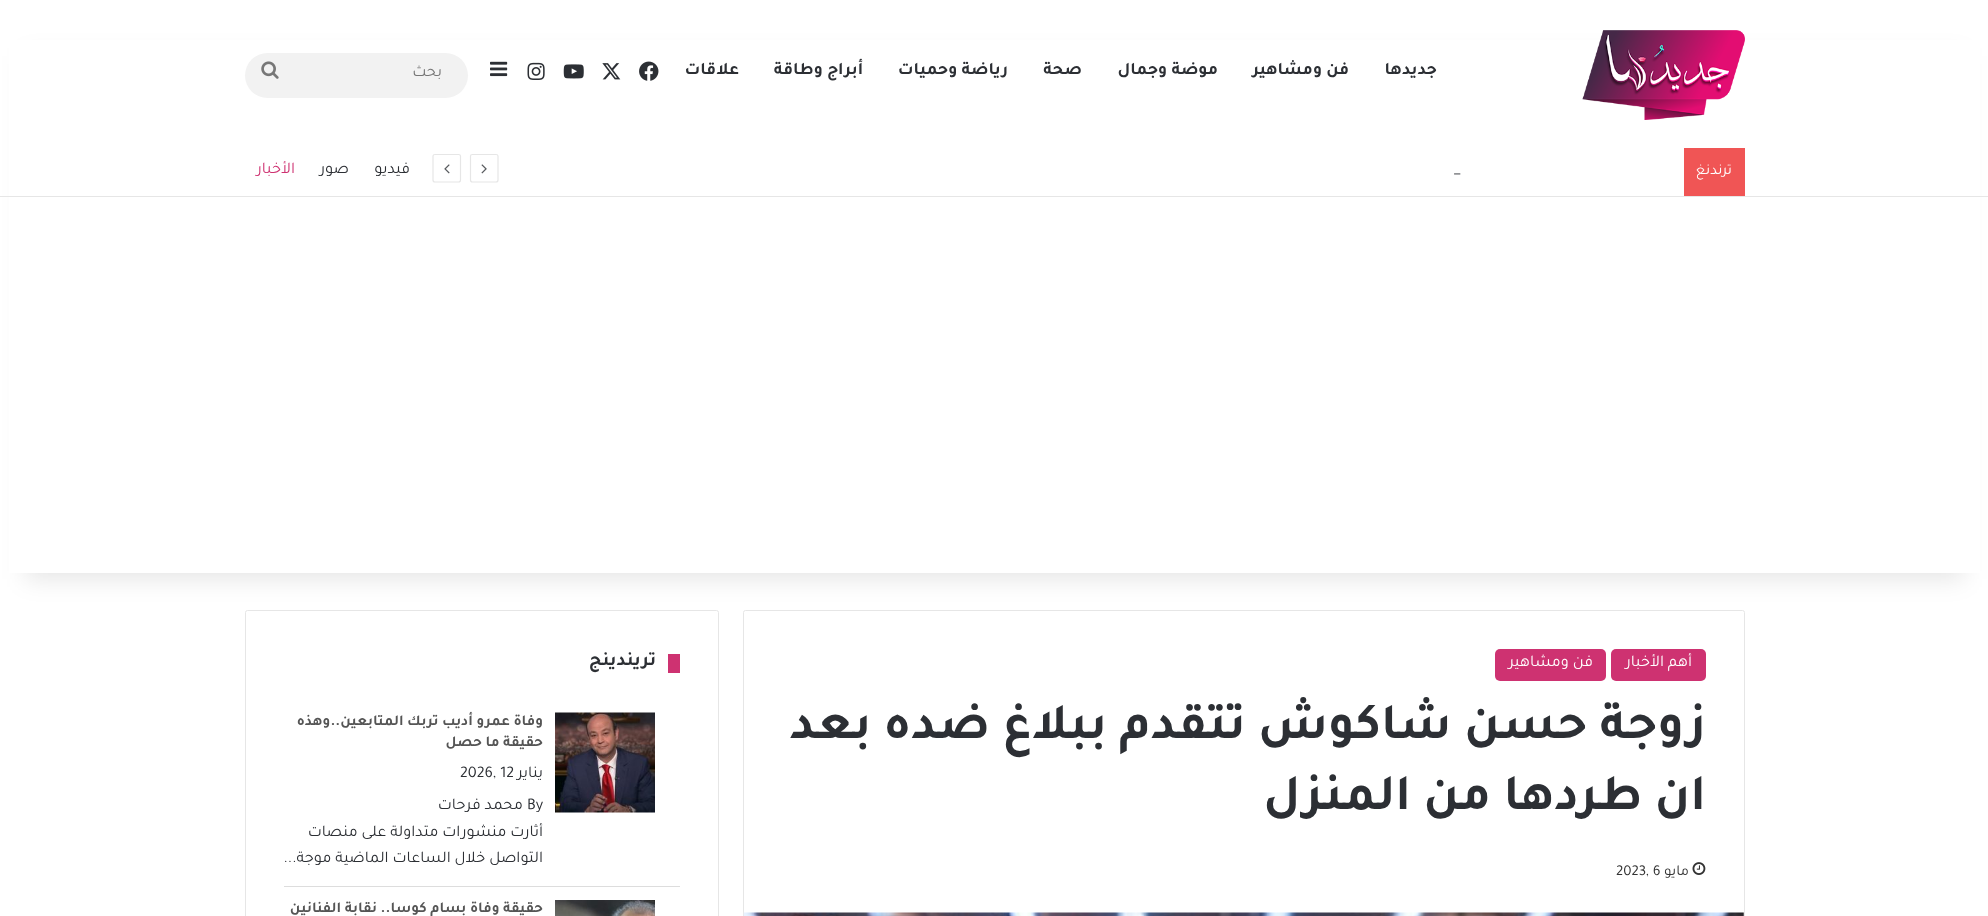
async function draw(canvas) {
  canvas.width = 1988;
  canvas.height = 916;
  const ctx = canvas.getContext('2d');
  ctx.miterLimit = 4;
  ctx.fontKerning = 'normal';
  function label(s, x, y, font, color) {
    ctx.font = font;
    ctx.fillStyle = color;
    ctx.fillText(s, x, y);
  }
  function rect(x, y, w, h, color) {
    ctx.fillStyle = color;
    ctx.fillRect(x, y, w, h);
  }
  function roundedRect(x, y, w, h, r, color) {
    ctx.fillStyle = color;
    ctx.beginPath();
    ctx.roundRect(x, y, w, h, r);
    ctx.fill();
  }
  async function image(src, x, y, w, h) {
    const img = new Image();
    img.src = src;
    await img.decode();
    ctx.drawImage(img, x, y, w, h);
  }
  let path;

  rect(0, 0, 1988, 916, '#fff');
  ctx.beginPath();
  ctx.roundRect(743.5, 610.5, 1001, 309, 2);
  ctx.strokeStyle = '#e6e6e6';
  ctx.stroke();
  ctx.beginPath();
  ctx.roundRect(245.5, 610.5, 473, 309, 2);
  ctx.stroke();
  ctx.fillStyle = '#0000001a';
  ctx.filter = 'blur(12.5px)';
  ctx.beginPath();
  ctx.rect(25, 56, 1939, 523);
  ctx.fill();
  ctx.filter = 'none';
  rect(9, 40, 1971, 533, '#fff');
  await image('assets/img1.png', 1582, 30, 163, 90);
  ctx.direction = 'rtl';
  label('جديدها', 1437, 74, 'bold 17.5px Tajawal', '#2c2f34');
  label('فن ومشاهير', 1349, 74, 'bold 17.5px Tajawal', '#2c2f34');
  label('موضة وجمال', 1218, 74, 'bold 17.5px Tajawal', '#2c2f34');
  label('صحة', 1082, 74, 'bold 17.5px Tajawal', '#2c2f34');
  label('رياضة وحميات', 1008, 74, 'bold 17.5px Tajawal', '#2c2f34');
  label('أبراج وطاقة', 863, 74, 'bold 17.5px Tajawal', '#2c2f34');
  label('علاقات', 739, 74, 'bold 17.5px Tajawal', '#2c2f34');
  await image('assets/img2.png', 639, 61, 20, 20);
  await image('assets/img3.png', 602, 63, 19, 17);
  await image('assets/img4.png', 563, 64, 21, 15);
  await image('assets/img5.png', 527, 62, 18, 18);
  await image('assets/img6.png', 490, 61, 18, 16);
  roundedRect(245, 53, 223, 45, 22.5, '#f2f2f2');
  label('بحث', 442, 76, '16.25px Tajawal', '#757575');
  await image('assets/img7.png', 261, 61, 18, 18);
  rect(0, 196, 1988, 1, '#e6e6e6');
  rect(1684, 148, 61, 48, '#f05555');
  label('ترندنغ', 1732, 174, '15px Tajawal', '#fff');
  ctx.direction = 'ltr';
  label('_', 1454, 173, '16.25px Tajawal', '#2c2f34');
  path = new Path2D('M496 182H472.5C471.5 182 470.5 181 470.5 180V156C470.5 155 471.5 154.5 472.5 154.5H496C497 154.5 498 155 498 156V180C498 181 497 182 496 182Z');
  ctx.lineWidth = 1.2;
  ctx.stroke(path);
  await image('assets/img8.png', 481, 164, 6, 10);
  path = new Path2D('M458.5 182H435C434 182 433 181 433 180V156C433 155 434 154.5 435 154.5H458.5C459.5 154.5 460.5 155 460.5 156V180C460.5 181 459.5 182 458.5 182Z');
  ctx.stroke(path);
  await image('assets/img9.png', 444, 164, 6, 10);
  ctx.direction = 'rtl';
  label('فيديو', 410, 173, '16.25px Tajawal', '#2c2f34');
  label('صور', 349, 173, '16.25px Tajawal', '#2c2f34');
  label('الأخبار', 295, 173, '16.25px Tajawal', '#ce3271');
  roundedRect(1611, 649, 95, 32, 5, '#ce3271');
  label('أهم الأخبار', 1692, 666, '16.25px Tajawal', '#fff');
  roundedRect(1495, 649, 111, 32, 5, '#ce3271');
  label('فن ومشاهير', 1593, 666, '16.25px Tajawal', '#fff');
  label('زوجة حسن شاكوش تتقدم ببلاغ ضده بعد', 1706, 738, 'bold 51.25px Tajawal', '#2c2f34');
  label('ان طردها من المنزل', 1706, 809, 'bold 51.25px Tajawal', '#2c2f34');
  await image('assets/img10.png', 1692, 862, 14, 13);
  label('مايو', 1689, 875, '15px Tajawal', '#333');
  ctx.direction = 'ltr';
  label('2023, 6', 1616, 875, '15px Tajawal', '#333');
  await image('assets/img11.png', 743, 912, 1001, 4);
  rect(668, 654, 12, 19, '#ce3271');
  ctx.direction = 'rtl';
  label('تريندينج', 656, 665, 'bold 19px Tajawal', '#2c2f34');
  rect(284, 886, 396, 1, '#ddd');
  await image('assets/img12.png', 555, 712, 100, 101);
  label('وفاة عمرو أديب تربك المتابعين..وهذه', 543, 725, 'bold 15px Tajawal', '#555');
  label('حقيقة ما حصل', 543, 746, 'bold 15px Tajawal', '#555');
  label('يناير', 543, 777, '16.25px Tajawal', '#2c2f34');
  ctx.direction = 'ltr';
  label('2026, 12', 460, 777, '16.25px Tajawal', '#2c2f34');
  label('By', 527, 809, '16.25px Tajawal', '#2c2f34');
  ctx.direction = 'rtl';
  label('محمد فرحات', 523, 809, '16.25px Tajawal', '#2c2f34');
  label('أثارت منشورات متداولة على منصات', 543, 836, '16.25px Tajawal', '#2c2f34');
  label('التواصل خلال الساعات الماضية موجة...', 543, 862, '16.25px Tajawal', '#2c2f34');
  await image('assets/img13.png', 555, 900, 100, 16);
  label('حقيقة وفاة بسام كوسا.. نقابة الفنانين', 543, 912, 'bold 15px Tajawal', '#555');
}

draw(document.querySelector('canvas'));
